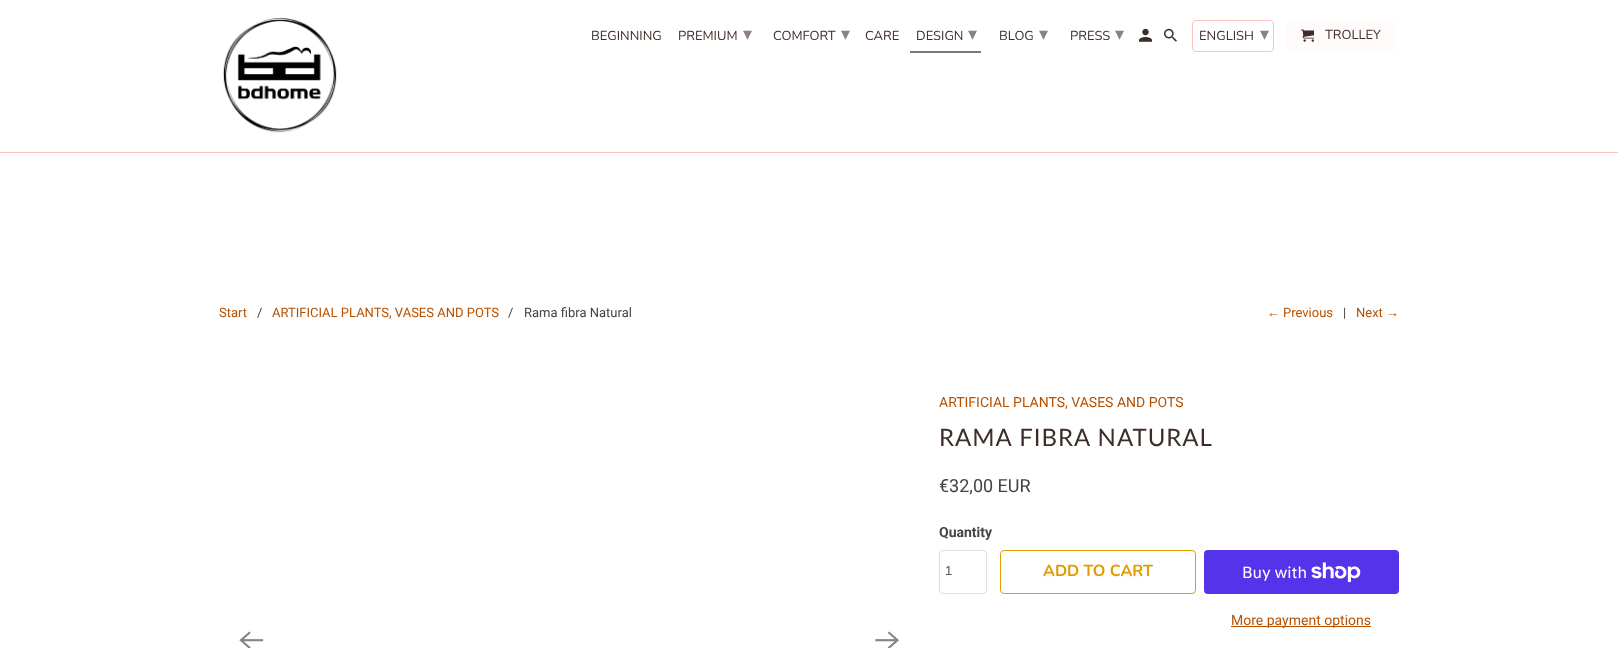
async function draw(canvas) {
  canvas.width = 1618;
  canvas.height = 648;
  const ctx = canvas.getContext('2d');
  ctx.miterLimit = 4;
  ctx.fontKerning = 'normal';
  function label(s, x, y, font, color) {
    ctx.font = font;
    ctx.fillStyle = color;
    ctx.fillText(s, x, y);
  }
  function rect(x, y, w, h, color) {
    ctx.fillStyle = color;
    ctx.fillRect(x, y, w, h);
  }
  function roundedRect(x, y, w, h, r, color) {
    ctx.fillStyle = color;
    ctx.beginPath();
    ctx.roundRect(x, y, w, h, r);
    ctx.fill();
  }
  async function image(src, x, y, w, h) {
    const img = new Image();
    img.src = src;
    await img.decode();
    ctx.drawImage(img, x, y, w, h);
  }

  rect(0, 0, 1618, 648, '#fff');
  rect(0, 152, 1618, 1, '#ffc0c0');
  await image('assets/img1.png', 223, 17, 114, 116);
  label('BEGINNING', 591, 40, '13px Nunito', '#3e2d29');
  label('PREMIUM', 678, 40, '13px Nunito', '#3e2d29');
  label('▾', 743, 40, '18px DejaVu Sans', '#8b817f');
  label('COMFORT', 773, 40, '13px Nunito', '#3e2d29');
  label('▾', 841, 40, '18px DejaVu Sans', '#8b817f');
  label('CARE', 865, 40, '13px Nunito', '#3e2d29');
  label('DESIGN', 916, 40, '13px Nunito', '#3e2d29');
  label('▾', 968, 40, '18px DejaVu Sans', '#8b817f');
  rect(910, 51, 71, 2, '#7c7b7b');
  label('BLOG', 999, 40, '13px Nunito', '#3e2d29');
  label('▾', 1039, 40, '18px DejaVu Sans', '#8b817f');
  label('PRESS', 1070, 40, '13px Nunito', '#3e2d29');
  label('▾', 1115, 40, '18px DejaVu Sans', '#8b817f');
  await image('assets/img2.png', 1139, 28, 13, 14);
  await image('assets/img3.png', 1164, 28, 13, 14);
  ctx.beginPath();
  ctx.roundRect(1192.5, 20.5, 81, 31, 3.5);
  ctx.strokeStyle = '#ffc0c0';
  ctx.stroke();
  label('ENGLISH', 1199, 40, '13px Nunito', '#3e2d29');
  label('▾', 1260, 40, '18px DejaVu Sans', '#8b817f');
  roundedRect(1286, 20, 110, 32, 4, '#fffbfb');
  await image('assets/img4.png', 1301, 29, 13, 13);
  label('TROLLEY', 1325, 39, '13px Nunito', '#3e2d29');
  label('Start', 219, 317, '13px Roboto', '#b75100');
  label('/', 257, 317, '13px Roboto', '#444');
  label('ARTIFICIAL PLANTS, VASES AND POTS', 272, 317, '13px Roboto', '#b75100');
  label('/', 508, 317, '13px Roboto', '#444');
  label('Rama fibra Natural', 524, 317, '13px Roboto', '#444');
  label('←', 1267, 317, '13px Liberation Sans', '#b75100');
  label('Previous', 1283, 317, '13px Roboto', '#b75100');
  label('|', 1343, 317, '13px Roboto', '#444');
  label('Next', 1356, 317, '13px Roboto', '#b75100');
  label('→', 1386, 317, '13px Liberation Sans', '#b75100');
  label('ARTIFICIAL PLANTS, VASES AND POTS', 939, 407, '14px Roboto', '#b75100');
  ctx.letterSpacing = '1px';
  label('RAMA FIBRA NATURAL', 939, 446, '24px Lato', '#3e2d29');
  ctx.letterSpacing = '0px';
  label('€32,00 EUR', 939, 492, '18px Roboto', '#444');
  label('Quantity', 939, 537, 'bold 14px Roboto', '#444');
  ctx.beginPath();
  ctx.roundRect(939.5, 550.5, 47, 43, 3.5);
  ctx.strokeStyle = '#dce0e0';
  ctx.stroke();
  label('1', 945, 575, '13px Liberation Sans', '#565a5c');
  ctx.beginPath();
  ctx.roundRect(1000.5, 550.5, 195, 43, 3.5);
  ctx.strokeStyle = '#df9a04';
  ctx.stroke();
  label('ADD TO CART', 1043, 576, 'bold 16px Nunito', '#df9a04');
  roundedRect(1204, 550, 195, 44, 4, '#5433eb');
  label('Buy with', 1242, 578, '16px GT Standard', '#fff');
  await image('assets/img5.png', 1311, 562, 50, 20);
  rect(1231, 626, 140, 1, '#b75100');
  label('More payment options', 1231, 625, '14px Roboto', '#b75100');
  await image('assets/img6.png', 239, 631, 25, 17);
  await image('assets/img7.png', 875, 631, 24, 17);
}

draw(document.querySelector('canvas'));
